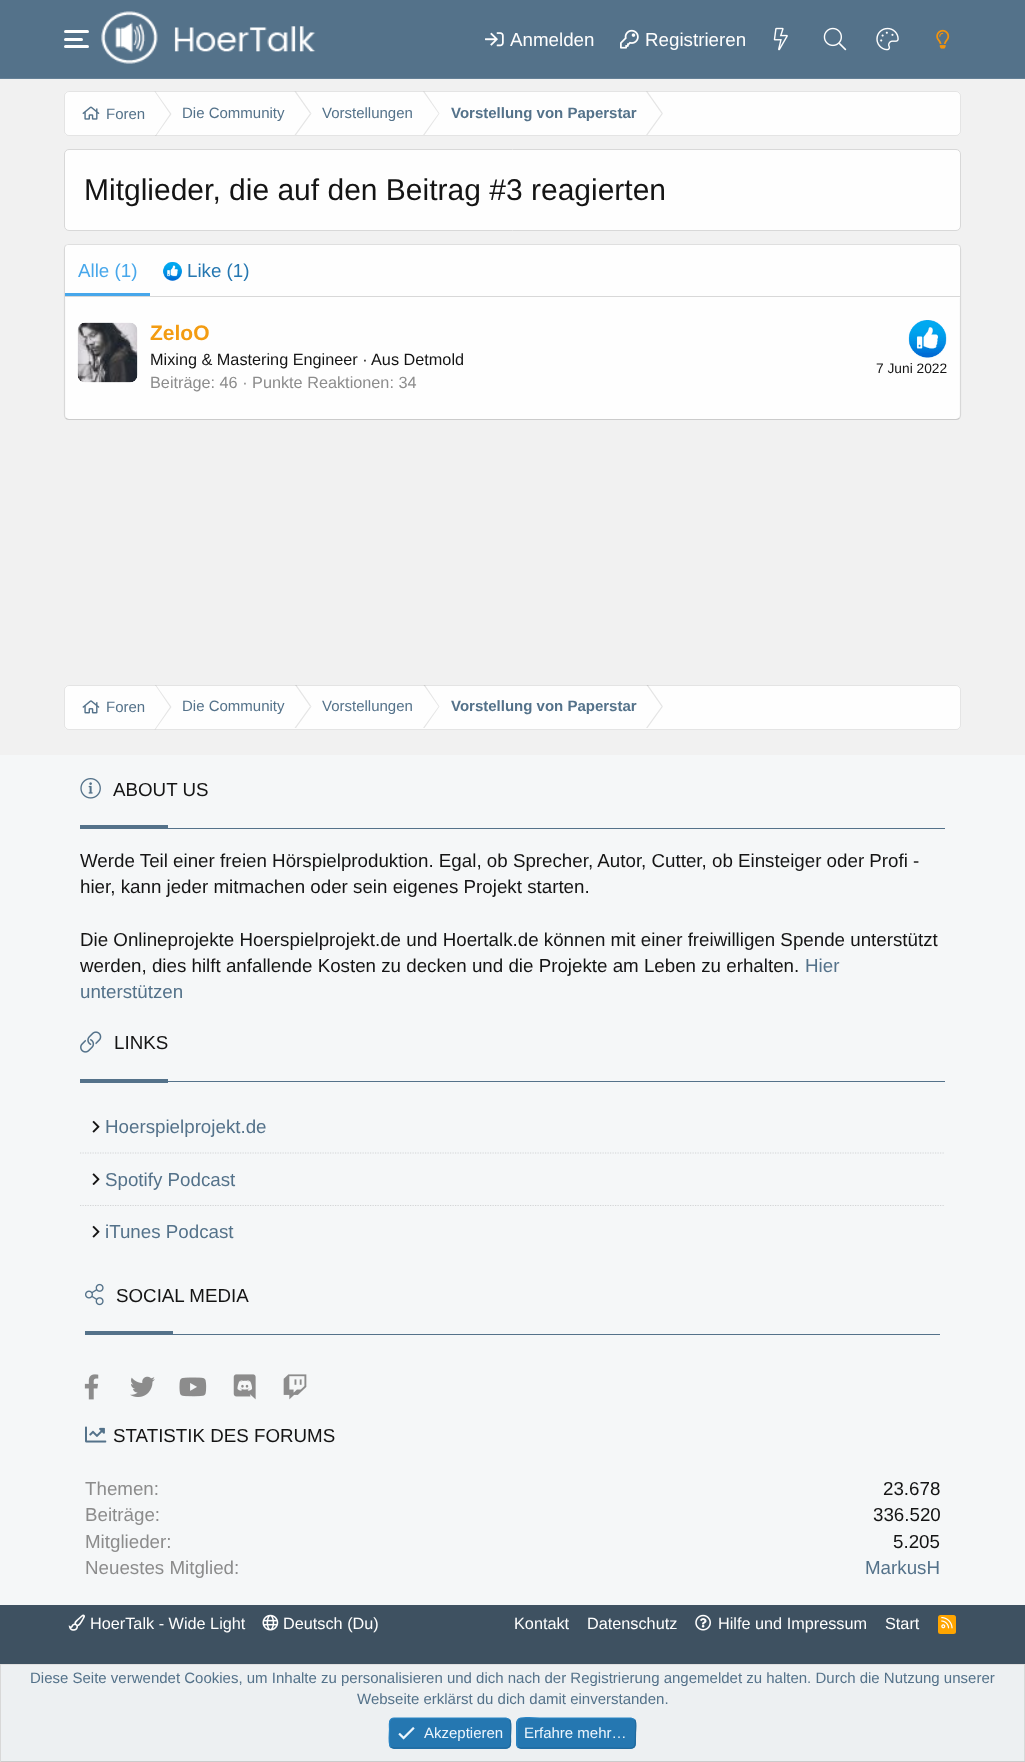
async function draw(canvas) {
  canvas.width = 1025;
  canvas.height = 1762;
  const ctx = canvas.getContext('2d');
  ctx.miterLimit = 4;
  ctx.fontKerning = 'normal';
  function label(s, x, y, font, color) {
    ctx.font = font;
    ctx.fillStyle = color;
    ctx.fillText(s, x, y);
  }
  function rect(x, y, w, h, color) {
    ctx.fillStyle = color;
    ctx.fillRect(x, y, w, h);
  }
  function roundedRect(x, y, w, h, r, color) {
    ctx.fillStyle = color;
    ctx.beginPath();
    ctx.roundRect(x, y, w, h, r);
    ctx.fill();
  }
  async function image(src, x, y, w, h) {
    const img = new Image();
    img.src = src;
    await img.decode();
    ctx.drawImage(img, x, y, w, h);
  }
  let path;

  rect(0, 0, 1025, 1762, '#f1f1f1');
  rect(0, 0, 1025, 78, '#54728a');
  rect(0, 78, 1025, 1, '#658096');
  roundedRect(64, 38, 19, 3, 1.5, '#fefefe');
  roundedRect(64, 30, 25, 3, 1.5, '#fefefe');
  roundedRect(64, 45, 25, 3, 1.5, '#fefefe');
  await image('assets/img1.png', 101, 11, 57, 53);
  await image('assets/img2.png', 174, 26, 142, 26);
  await image('assets/img3.png', 485, 32, 19, 15);
  label('Anmelden', 510, 46, '18.75px Liberation Sans', '#fefefe');
  await image('assets/img4.png', 620, 29, 19, 20);
  label('Registrieren', 645, 46, '18.75px Liberation Sans', '#fefefe');
  await image('assets/img5.png', 773, 27, 15, 24);
  await image('assets/img6.png', 823, 27, 24, 24);
  await image('assets/img7.png', 876, 27, 23, 24);
  await image('assets/img8.png', 936, 29, 14, 20);
  roundedRect(64, 91, 897, 45, 5, '#fefefe');
  await image('assets/img9.png', 82, 106, 18, 14);
  ctx.fillStyle = '#e5e5e5';
  path = new Path2D('M154.5 91.5H155.5L171.5 114H170ZM170 114H171.5L156 136H155Z');
  ctx.fill(path);
  path = new Path2D('M294.5 91.5H296L311.5 113.5H310Z');
  ctx.fill(path);
  path = new Path2D('M310 113.5H311.5L296 135H294.5Z');
  ctx.fill(path);
  path = new Path2D('M423 91.5H424.5L439.5 113.5H438.5Z');
  ctx.fill(path);
  path = new Path2D('M438.5 113.5H439.5L424.5 135H423Z');
  ctx.fill(path);
  path = new Path2D('M646 91.5H647.5L663 113.5H661.5Z');
  ctx.fill(path);
  path = new Path2D('M661.5 113.5H663L647.5 135H646Z');
  ctx.fill(path);
  ctx.beginPath();
  ctx.roundRect(64.5, 91.5, 896, 44, 4.5);
  ctx.strokeStyle = '#0000001a';
  ctx.stroke();
  label('Foren', 106, 119, '15px Liberation Sans', '#54728a');
  label('Die Community', 182, 118, '15px Liberation Sans', '#54728a');
  label('Vorstellungen', 322, 118, '15px Liberation Sans', '#54728a');
  label('Vorstellung von Paperstar', 451, 118, 'bold 15px Liberation Sans', '#54728a');
  ctx.fillStyle = '#fefefe';
  ctx.beginPath();
  ctx.roundRect(64.5, 149.5, 896, 81, 4.5);
  ctx.fill();
  ctx.strokeStyle = '#d8d8d8';
  ctx.stroke();
  label('Mitglieder, die auf den Beitrag #3 reagierten', 84, 200, '30px Liberation Sans', '#141414');
  roundedRect(64, 244, 897, 176, 5, '#fefefe');
  path = new Path2D('M65.5 245.5C66.5 245 67.5 244.5 69 244.5H956C957.5 244.5 958.5 245 959.5 245.5');
  ctx.strokeStyle = '#dfdfdf';
  ctx.lineWidth = 1.2;
  ctx.stroke(path);
  path = new Path2D('M959.5 245.5C960 246.5 960.5 247.5 960.5 249V415C960.5 416 960 417.5 959.5 418');
  ctx.strokeStyle = '#d8d8d8';
  ctx.stroke(path);
  path = new Path2D('M959.5 418C958.5 419 957.5 419.5 956 419.5H69C67.5 419.5 66.5 419 65.5 418');
  ctx.strokeStyle = '#cbcbcb';
  ctx.stroke(path);
  path = new Path2D('M65.5 418C65 417.5 64.5 416 64.5 415V249C64.5 247.5 65 246.5 65.5 245.5');
  ctx.strokeStyle = '#d8d8d8';
  ctx.stroke(path);
  ctx.beginPath();
  ctx.roundRect(65, 245, 895, 53, [4, 4, 0, 0]);
  ctx.fill();
  rect(65, 296, 895, 1, '#d8d8d8');
  rect(65, 293, 85, 3, '#47a7eb');
  label('Alle (1)', 78, 277, '18.75px Liberation Sans', '#47a7eb');
  await image('assets/img10.png', 163, 262, 19, 19);
  label('Like (1)', 187, 277, '18.75px Liberation Sans', '#2577b1');
  await image('assets/img11.png', 77, 322, 61, 61);
  label('ZeloO', 150, 340, 'bold 21px Liberation Sans', '#f39c12');
  label('Mixing & Mastering Engineer ·', 150, 365, '16.25px Liberation Sans', '#141414');
  label('Aus Detmold', 371, 365, '16.25px Liberation Sans', '#141414');
  await image('assets/img12.png', 908, 320, 39, 38);
  label('7 Juni 2022', 876, 373, '13.75px Liberation Sans', '#141414');
  label('Beiträge: 46 · Punkte Reaktionen: 34', 150, 388, '16.25px Liberation Sans', '#8c8c8c');
  roundedRect(64, 685, 897, 45, 5, '#fefefe');
  await image('assets/img13.png', 82, 700, 18, 14);
  ctx.fillStyle = '#e5e5e5';
  path = new Path2D('M156 685L171.5 707H170L155 685ZM170 707H171.5L155.5 729.5H154.5Z');
  ctx.fill(path);
  path = new Path2D('M296.5 685L311.5 706.5H310L295 685Z');
  ctx.fill(path);
  path = new Path2D('M310 706.5H311.5L296 728H294.5Z');
  ctx.fill(path);
  path = new Path2D('M425 685L439.5 706.5H438.5L423.5 685Z');
  ctx.fill(path);
  path = new Path2D('M438.5 706.5H439.5L424.5 728H423Z');
  ctx.fill(path);
  path = new Path2D('M648 685L663 706.5H661.5L646.5 685Z');
  ctx.fill(path);
  path = new Path2D('M661.5 706.5H663L647.5 728H646Z');
  ctx.fill(path);
  ctx.beginPath();
  ctx.roundRect(64.5, 685.5, 896, 44, 4.5);
  ctx.strokeStyle = '#0000001a';
  ctx.lineWidth = 1;
  ctx.stroke();
  label('Foren', 106, 712, '15px Liberation Sans', '#54728a');
  label('Die Community', 182, 711, '15px Liberation Sans', '#54728a');
  label('Vorstellungen', 322, 711, '15px Liberation Sans', '#54728a');
  label('Vorstellung von Paperstar', 451, 711, 'bold 15px Liberation Sans', '#54728a');
  rect(0, 755, 1025, 850, '#f5f7f8');
  await image('assets/img14.png', 80, 778, 21, 21);
  label('ABOUT US', 113, 796, '18.75px Liberation Sans', '#141414');
  rect(168, 828, 777, 1, '#54728a');
  rect(80, 825, 88, 4, '#54728a');
  label('Werde Teil einer freien Hörspielproduktion. Egal, ob Sprecher, Autor, Cutter, ob Einsteiger oder Profi -', 80, 867, '18.75px Liberation Sans', '#141414');
  label('hier, kann jeder mitmachen oder sein eigenes Projekt starten.', 80, 893, '18.75px Liberation Sans', '#141414');
  label('Die Onlineprojekte Hoerspielprojekt.de und Hoertalk.de können mit einer freiwilligen Spende unterstützt', 80, 946, '18.75px Liberation Sans', '#141414');
  label('werden, dies hilft anfallende Kosten zu decken und die Projekte am Leben zu erhalten.', 80, 972, '18.75px Liberation Sans', '#141414');
  label('Hier', 805, 972, '18.75px Liberation Sans', '#54728a');
  label('unterstützen', 80, 998, '18.75px Liberation Sans', '#54728a');
  await image('assets/img15.png', 80, 1031, 22, 22);
  label('LINKS', 114, 1049, '18.75px Liberation Sans', '#141414');
  rect(168, 1081, 777, 1, '#54728a');
  rect(80, 1079, 88, 4, '#54728a');
  path = new Path2D('M80 1153H945');
  ctx.strokeStyle = '#d3d5d6';
  ctx.lineWidth = 1.2;
  ctx.setLineDash([1.25, 1.25]);
  ctx.stroke(path);
  await image('assets/img16.png', 92, 1120, 8, 13);
  label('Hoerspielprojekt.de', 105, 1133, '18.75px Liberation Sans', '#54728a');
  path = new Path2D('M80 1205.5H945');
  ctx.stroke(path);
  await image('assets/img17.png', 92, 1173, 8, 12);
  label('Spotify Podcast', 105, 1186, '18.75px Liberation Sans', '#54728a');
  await image('assets/img16.png', 92, 1225, 8, 13);
  label('iTunes Podcast', 105, 1238, '18.75px Liberation Sans', '#54728a');
  await image('assets/img18.png', 85, 1283, 19, 23);
  label('SOCIAL MEDIA', 116, 1302, '18.75px Liberation Sans', '#141414');
  rect(173, 1334, 767, 1, '#54728a');
  rect(85, 1331, 88, 4, '#54728a');
  await image('assets/img19.png', 84, 1374, 15, 26);
  await image('assets/img20.png', 130, 1376, 25, 21);
  await image('assets/img21.png', 179, 1377, 28, 20);
  await image('assets/img22.png', 233, 1374, 23, 26);
  await image('assets/img23.png', 283, 1374, 24, 26);
  await image('assets/img24.png', 85, 1426, 22, 17);
  label('STATISTIK DES FORUMS', 113, 1442, '18.75px Liberation Sans', '#141414');
  label('Themen:', 85, 1495, '18.75px Liberation Sans', '#8c8c8c');
  label('23.678', 883, 1495, '18.75px Liberation Sans', '#141414');
  label('Beiträge:', 85, 1521, '18.75px Liberation Sans', '#8c8c8c');
  label('336.520', 873, 1521, '18.75px Liberation Sans', '#141414');
  label('Mitglieder:', 85, 1548, '18.75px Liberation Sans', '#8c8c8c');
  label('5.205', 893, 1548, '18.75px Liberation Sans', '#141414');
  label('Neuestes Mitglied:', 85, 1574, '18.75px Liberation Sans', '#8c8c8c');
  label('MarkusH', 865, 1574, '18.75px Liberation Sans', '#54728a');
  rect(0, 1605, 1025, 59, '#3e5161');
  await image('assets/img25.png', 68, 1614, 17, 17);
  label('HoerTalk - Wide Light', 90, 1629, '16.25px Liberation Sans', '#fefefe');
  await image('assets/img26.png', 262, 1614, 17, 17);
  label('Deutsch (Du)', 283, 1629, '16.25px Liberation Sans', '#fefefe');
  label('Kontakt', 514, 1629, '16.25px Liberation Sans', '#fefefe');
  label('Datenschutz', 587, 1629, '16.25px Liberation Sans', '#fefefe');
  await image('assets/img27.png', 695, 1614, 16, 17);
  label('Hilfe und Impressum', 718, 1629, '16.25px Liberation Sans', '#fefefe');
  label('Start', 885, 1629, '16.25px Liberation Sans', '#fefefe');
  roundedRect(938, 1615, 18, 19, 2.5, '#ffa500');
  await image('assets/img28.png', 941, 1616, 12, 13);
  rect(1, 1665, 1023, 96, '#edf0f2');
  rect(0, 1664, 1025, 1, '#dfdfdf');
  rect(1024, 1664, 1, 98, '#d8d8d8');
  rect(0, 1761, 1025, 1, '#cbcbcb');
  rect(0, 1664, 1, 98, '#d8d8d8');
  label('Diese Seite verwendet Cookies, um Inhalte zu personalisieren und dich nach der Registrierung angemeldet zu halten. Durch die Nutzung unserer', 30, 1683, '15px Liberation Sans', '#54728a');
  label('Webseite erklärst du dich damit einverstanden.', 357, 1704, '15px Liberation Sans', '#54728a');
  roundedRect(389, 1718, 122, 31, 5, '#2577b1');
  path = new Path2D('M509.5 1719.5C512 1722 510.5 1733 510.5 1736.5C510.5 1740 512 1748 506 1748H394L390.5 1747');
  ctx.strokeStyle = '#21699c';
  ctx.setLineDash([]);
  ctx.stroke(path);
  path = new Path2D('M390.5 1747C388 1744 389.5 1733 389.5 1729.5C389.5 1726 388 1718 394 1718H506L509.5 1719.5');
  ctx.strokeStyle = '#2985c6';
  ctx.stroke(path);
  await image('assets/img29.png', 398, 1727, 17, 13);
  label('Akzeptieren', 424, 1738, '15px Liberation Sans', '#edf6fd');
  roundedRect(516, 1718, 120, 31, 5, '#2577b1');
  path = new Path2D('M634.5 1719.5C637 1722 635.5 1730 635.5 1733C635.5 1752.5 636 1748 613 1748H521L518 1747');
  ctx.strokeStyle = '#21699c';
  ctx.stroke(path);
  path = new Path2D('M518 1747C515.5 1744 517 1736.5 517 1733C517 1713.5 516.5 1718 539.5 1718H631L634.5 1719.5');
  ctx.strokeStyle = '#2985c6';
  ctx.stroke(path);
  label('Erfahre mehr…', 524, 1738, '15px Liberation Sans', '#edf6fd');
}

draw(document.querySelector('canvas'));
